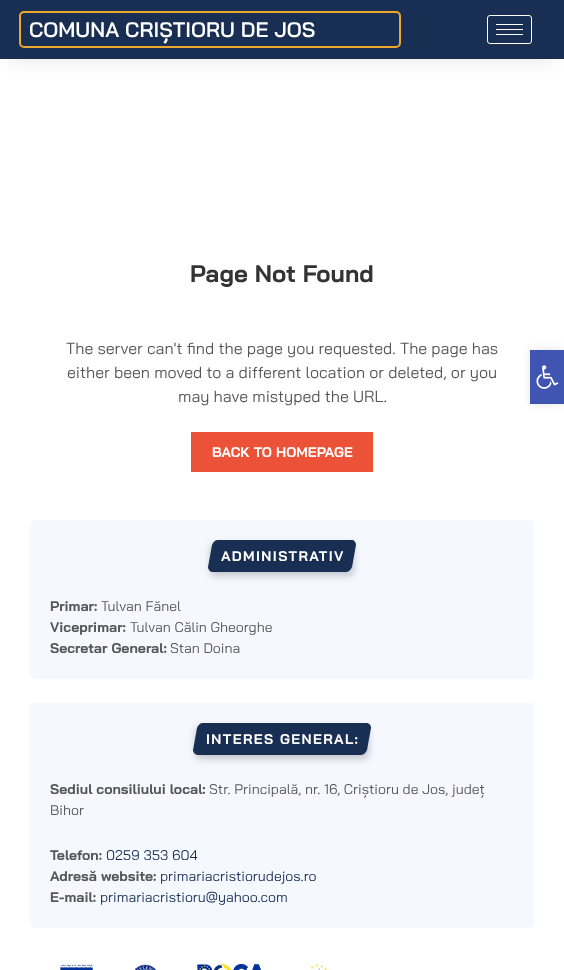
async function draw(canvas) {
  canvas.width = 564;
  canvas.height = 970;
  const ctx = canvas.getContext('2d');
  ctx.miterLimit = 4;
  ctx.fontKerning = 'normal';
  function label(s, x, y, font, color) {
    ctx.font = font;
    ctx.fillStyle = color;
    ctx.fillText(s, x, y);
  }
  function rect(x, y, w, h, color) {
    ctx.fillStyle = color;
    ctx.fillRect(x, y, w, h);
  }
  function roundedRect(x, y, w, h, r, color) {
    ctx.fillStyle = color;
    ctx.beginPath();
    ctx.roundRect(x, y, w, h, r);
    ctx.fill();
  }
  async function image(src, x, y, w, h) {
    const img = new Image();
    img.src = src;
    await img.decode();
    ctx.drawImage(img, x, y, w, h);
  }
  let path;

  rect(0, 0, 564, 970, '#fff');
  ctx.fillStyle = '#0000001a';
  ctx.filter = 'blur(9.5px)';
  ctx.beginPath();
  ctx.rect(10, 21, 544, 39);
  ctx.fill();
  ctx.filter = 'none';
  rect(0, 0, 564, 59, '#182f53');
  ctx.beginPath();
  ctx.roundRect(20, 12, 380, 35, 4);
  ctx.strokeStyle = '#eca72c';
  ctx.lineWidth = 2;
  ctx.stroke();
  label('COMUNA CRIȘTIORU DE JOS', 29, 37, '600 21px Bai Jamjuree', '#fff');
  ctx.beginPath();
  ctx.roundRect(487.5, 15.5, 44, 28, 2.5);
  ctx.strokeStyle = '#fff';
  ctx.lineWidth = 1;
  ctx.stroke();
  rect(496, 24, 27, 1, '#fff');
  rect(496, 29, 27, 1, '#fff');
  rect(496, 34, 27, 1, '#fff');
  label('Page Not Found', 190, 282, 'bold 24px Bai Jamjuree', '#333');
  label('The server can\'t find the page you requested. The page has', 66, 354, '16px Bai Jamjuree', '#565656');
  label('either been moved to a different location or deleted, or you', 67, 378, '16px Bai Jamjuree', '#565656');
  label('may have mistyped the URL.', 178, 402, '16px Bai Jamjuree', '#565656');
  rect(191, 432, 182, 40, '#ec5237');
  label('BACK TO HOMEPAGE', 212, 457, 'bold 14px Bai Jamjuree', '#fff');
  roundedRect(30, 520, 504, 159, 5, '#f5f9ff');
  ctx.fillStyle = '#00000033';
  ctx.filter = 'blur(3.5px)';
  ctx.beginPath();
  ctx.roundRect(210, 544, 144, 32, 5);
  ctx.fill();
  ctx.filter = 'none';
  ctx.fillStyle = '#182f53';
  path = new Path2D('M218 540H352C354 540 356 542 356 545L352 567C351 569 349 572 346 572H212C210 572 208 569 208 567L212 545C213 542 215 540 218 540Z');
  ctx.fill(path);
  ctx.letterSpacing = '1.4px';
  label('ADMINISTRATIV', 221, 561, 'bold 14px Bai Jamjuree', '#fff');
  ctx.letterSpacing = '0px';
  label('Primar:', 50, 611, 'bold 14px Bai Jamjuree', '#565656');
  label('Tulvan Fănel', 101, 611, '14px Bai Jamjuree', '#565656');
  label('Viceprimar:', 50, 632, 'bold 14px Bai Jamjuree', '#565656');
  label('Tulvan Călin Gheorghe', 130, 632, '14px Bai Jamjuree', '#565656');
  label('Secretar General:', 50, 653, 'bold 14px Bai Jamjuree', '#565656');
  label('Stan Doina', 170, 653, '14px Bai Jamjuree', '#565656');
  roundedRect(30, 703, 504, 225, 5, '#f5f9ff');
  ctx.fillStyle = '#00000033';
  ctx.filter = 'blur(3.5px)';
  ctx.beginPath();
  ctx.roundRect(195, 727, 174, 32, 5);
  ctx.fill();
  ctx.filter = 'none';
  ctx.fillStyle = '#182f53';
  path = new Path2D('M203 723H366C369 723 371 725 371 728L367 750C366 752 364 755 361 755H198C195 755 193 752 193 750L197 728C198 725 200 723 203 723Z');
  ctx.fill(path);
  ctx.letterSpacing = '1.4px';
  label('INTERES GENERAL:', 206, 744, 'bold 14px Bai Jamjuree', '#fff');
  ctx.letterSpacing = '0px';
  label('Sediul consiliului local:', 50, 794, 'bold 14px Bai Jamjuree', '#565656');
  label('Str. Principală, nr. 16, Criștioru de Jos, județ', 209, 794, '14px Bai Jamjuree', '#565656');
  label('Bihor', 50, 815, '14px Bai Jamjuree', '#565656');
  label('Telefon:', 50, 860, 'bold 14px Bai Jamjuree', '#565656');
  label('0259 353 604', 106, 860, '14px Bai Jamjuree', '#182f53');
  label('Adresă website:', 50, 881, 'bold 14px Bai Jamjuree', '#565656');
  label('primariacristiorudejos.ro', 160, 881, '14px Bai Jamjuree', '#182f53');
  label('E-mail:', 50, 902, 'bold 14px Bai Jamjuree', '#565656');
  label('primariacristioru@yahoo.com', 100, 902, '14px Bai Jamjuree', '#182f53');
  await image('assets/img1.png', 60, 964, 267, 6);
  ctx.fillStyle = '#0000001a';
  ctx.filter = 'blur(5px)';
  ctx.beginPath();
  ctx.rect(530, 350, 34, 54);
  ctx.fill();
  ctx.filter = 'none';
  rect(530, 350, 34, 54, '#4054b2');
  await image('assets/img2.png', 536, 365, 23, 24);
}

draw(document.querySelector('canvas'));
